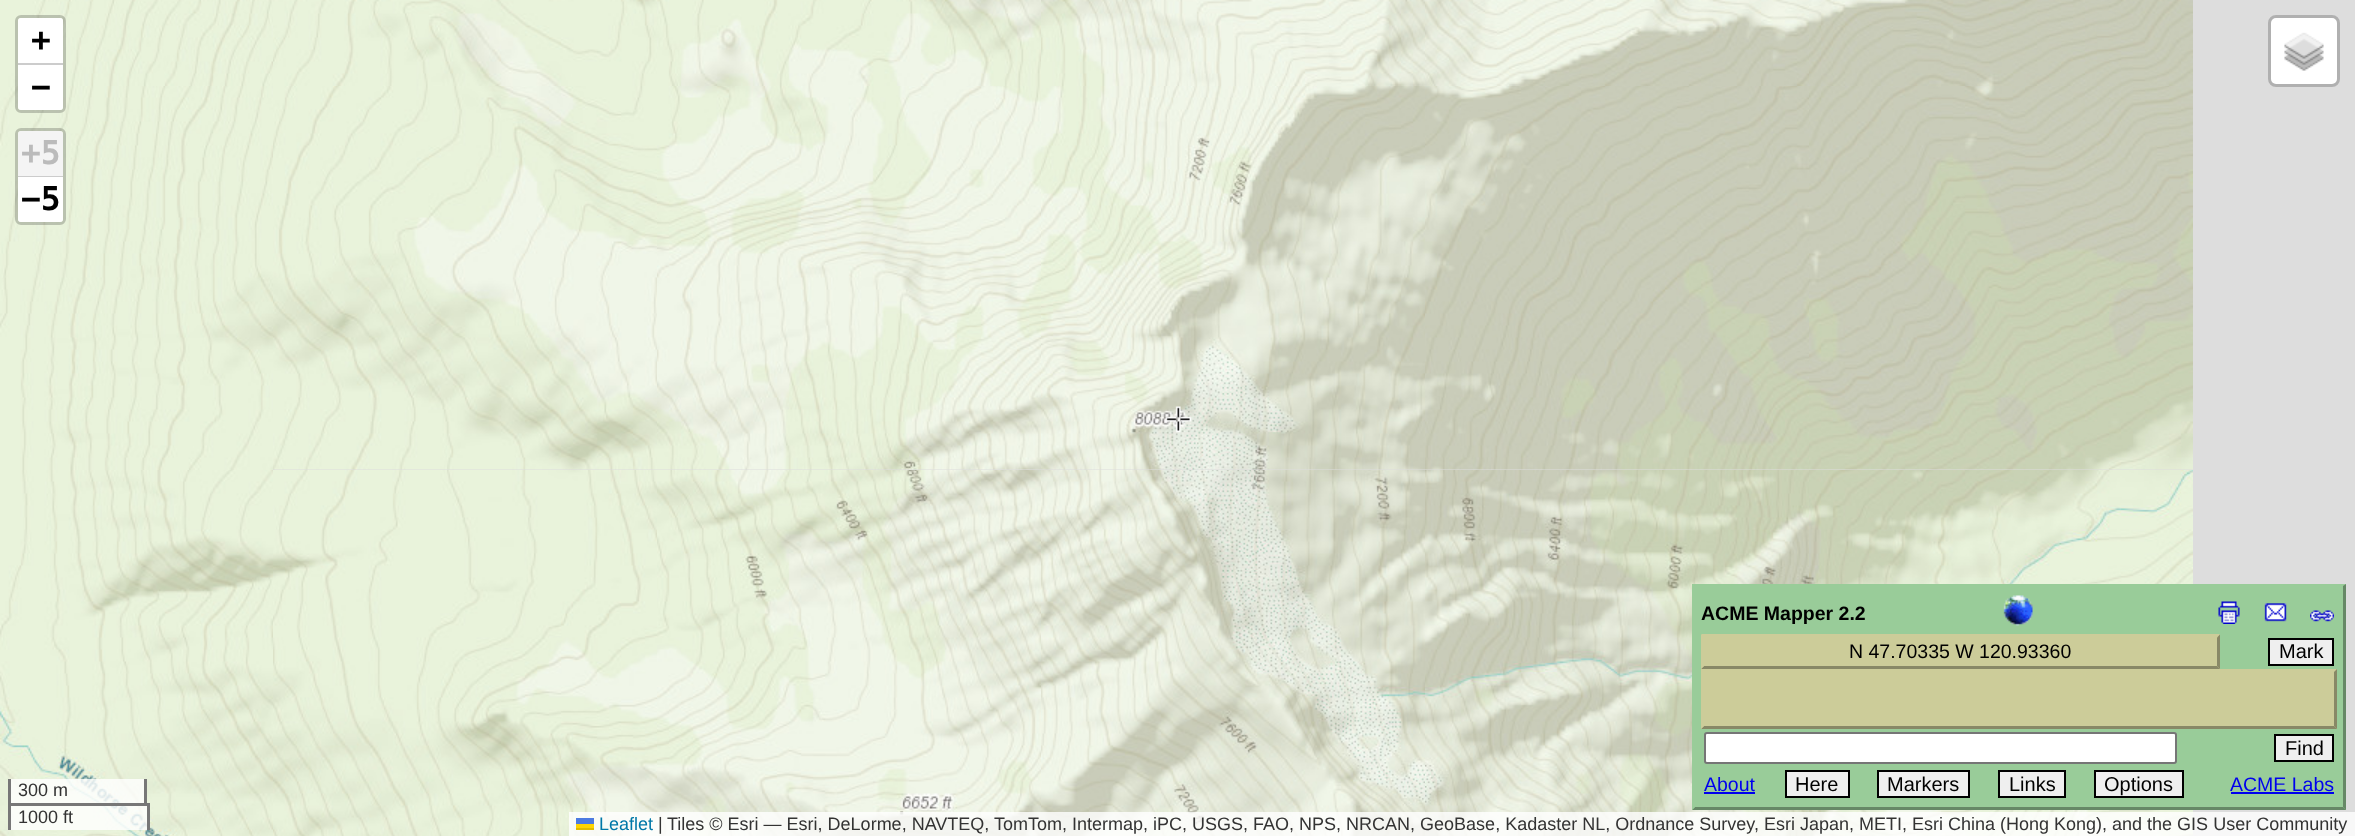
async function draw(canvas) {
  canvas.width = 2355;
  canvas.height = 836;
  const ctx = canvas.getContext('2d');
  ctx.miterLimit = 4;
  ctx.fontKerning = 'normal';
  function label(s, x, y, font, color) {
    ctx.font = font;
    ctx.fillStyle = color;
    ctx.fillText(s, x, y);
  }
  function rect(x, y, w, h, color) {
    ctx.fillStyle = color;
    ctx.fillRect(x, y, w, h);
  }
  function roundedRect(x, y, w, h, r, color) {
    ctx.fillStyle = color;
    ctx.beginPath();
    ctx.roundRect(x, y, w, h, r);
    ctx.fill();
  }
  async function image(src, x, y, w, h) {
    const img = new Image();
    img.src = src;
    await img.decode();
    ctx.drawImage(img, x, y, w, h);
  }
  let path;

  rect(0, 0, 2355, 836, '#ddd');
  await image('assets/img1.png', 0, 0, 273, 86);
  await image('assets/img2.png', 273, 0, 384, 86);
  await image('assets/img3.png', 657, 0, 384, 86);
  await image('assets/img4.png', 1041, 0, 384, 86);
  await image('assets/img5.png', 1425, 0, 384, 86);
  await image('assets/img6.png', 1809, 0, 384, 86);
  await image('assets/img7.png', 0, 86, 273, 384);
  await image('assets/img8.png', 273, 86, 384, 384);
  await image('assets/img9.png', 657, 86, 384, 384);
  await image('assets/img10.png', 1041, 86, 384, 384);
  await image('assets/img11.png', 1425, 86, 384, 384);
  await image('assets/img12.png', 1809, 86, 384, 384);
  await image('assets/img13.png', 0, 470, 273, 366);
  await image('assets/img14.png', 273, 470, 384, 366);
  await image('assets/img15.png', 657, 470, 384, 366);
  await image('assets/img16.png', 1041, 470, 384, 366);
  await image('assets/img17.png', 1425, 470, 384, 366);
  await image('assets/img18.png', 1809, 470, 384, 366);
  ctx.beginPath();
  ctx.roundRect(16.5, 16.5, 48, 95, 4.5);
  ctx.strokeStyle = '#00000033';
  ctx.lineWidth = 3;
  ctx.stroke();
  ctx.fillStyle = '#fff';
  ctx.beginPath();
  ctx.roundRect(18, 18, 45, 47, [3, 3, 0, 0]);
  ctx.fill();
  rect(18, 63, 45, 2, '#ccc');
  label('+', 31, 51, 'bold 33px DejaVu Sans Mono', '#000');
  ctx.fillStyle = '#fff';
  ctx.beginPath();
  ctx.roundRect(18, 65, 45, 45, [0, 0, 3, 3]);
  ctx.fill();
  label('−', 31, 98, 'bold 33px DejaVu Sans Mono', '#000');
  ctx.beginPath();
  ctx.roundRect(16.5, 129.5, 48, 94, 4.5);
  ctx.stroke();
  ctx.fillStyle = '#f4f4f4';
  ctx.beginPath();
  ctx.roundRect(18, 131, 45, 46, [3, 3, 0, 0]);
  ctx.fill();
  rect(18, 176, 45, 1, '#ccc');
  label('+5', 21, 164, 'bold 33px DejaVu Sans Mono', '#bbb');
  ctx.fillStyle = '#fff';
  ctx.beginPath();
  ctx.roundRect(18, 177, 45, 45, [0, 0, 3, 3]);
  ctx.fill();
  label('−5', 21, 210, 'bold 33px DejaVu Sans Mono', '#000');
  roundedRect(2271, 18, 66, 66, 5, '#fff');
  ctx.beginPath();
  ctx.roundRect(2269.5, 16.5, 69, 69, 6.5);
  ctx.stroke();
  await image('assets/img19.png', 2284, 32, 40, 39);
  rect(11, 779, 133, 24, '#ffffffcc');
  rect(144, 779, 3, 27, '#777');
  rect(8, 779, 3, 27, '#777');
  label('300 m', 18, 796, '18px Liberation Sans', '#333');
  rect(11, 806, 136, 24, '#ffffffcc');
  rect(8, 803, 142, 3, '#777');
  rect(147, 803, 3, 27, '#777');
  rect(8, 803, 3, 27, '#777');
  label('1000 ft', 18, 823, '18px Liberation Sans', '#333');
  rect(569, 812, 1786, 24, '#ffffffcc');
  label('Leaflet', 599, 830, '18px Liberation Sans', '#0078a8');
  rect(576, 818, 18, 6, '#4c7be1');
  rect(576, 824, 18, 4, '#ffd500');
  rect(576, 828, 18, 2, '#e0bc00');
  label('|', 658, 830, '18px Liberation Sans', '#333');
  label('Tiles © Esri — Esri, DeLorme, NAVTEQ, TomTom, Intermap, iPC, USGS, FAO, NPS, NRCAN, GeoBase, Kadaster NL, Ordnance Survey, Esri Japan, METI, Esri China (Hong Kong), and the GIS User Community', 667, 830, '18px Liberation Sans', '#333');
  await image('assets/img20.png', 1165, 406, 27, 27);
  rect(1692, 584, 654, 226, '#9c9');
  ctx.fillStyle = '#686';
  path = new Path2D('M2346 584V810L2343 807V586Z');
  ctx.fill(path);
  path = new Path2D('M2346 810H1692L1695 807H2343Z');
  ctx.fill(path);
  ctx.fillStyle = '#9c9';
  path = new Path2D('M1692 810V584L1695 586V807Z');
  ctx.fill(path);
  label('ACME Mapper 2.2', 1701, 620, 'bold 19.5px Liberation Sans', '#000');
  await image('assets/img21.png', 2003, 595, 30, 31);
  await image('assets/img22.png', 2218, 601, 22, 23);
  await image('assets/img23.png', 2264, 603, 23, 19);
  await image('assets/img24.png', 2310, 610, 24, 12);
  rect(1701, 635, 519, 34, '#cc9');
  path = new Path2D('M1701 634H2220L2217 638H1704Z');
  ctx.fill(path);
  ctx.fillStyle = '#886';
  path = new Path2D('M2220 634.5V669L2217 666V637.5Z');
  ctx.fill(path);
  path = new Path2D('M2220 669H1701L1704 666H2217Z');
  ctx.fill(path);
  ctx.fillStyle = '#cc9';
  path = new Path2D('M1701 669V634.5L1704 637.5V666Z');
  ctx.fill(path);
  label('N 47.70335 W 120.93360', 1849, 658, '19.5px Liberation Sans', '#000');
  ctx.fillStyle = '#efefef';
  ctx.beginPath();
  ctx.rect(2269, 639, 64, 26);
  ctx.fill();
  ctx.strokeStyle = '#000';
  ctx.lineWidth = 2;
  ctx.stroke();
  label('Mark', 2279, 658, '20px Liberation Sans', '#000');
  rect(1701, 669, 636, 60, '#cc9');
  ctx.fillStyle = '#886';
  path = new Path2D('M2337 669V729L2334 726V672Z');
  ctx.fill(path);
  path = new Path2D('M2337 729H1701L1704 726H2334Z');
  ctx.fill(path);
  ctx.fillStyle = '#cc9';
  path = new Path2D('M1701 729V669L1704 672V726Z');
  ctx.fill(path);
  ctx.fillStyle = '#fff';
  ctx.beginPath();
  ctx.roundRect(1705, 733, 471, 30, 2);
  ctx.fill();
  ctx.strokeStyle = '#767676';
  ctx.stroke();
  ctx.fillStyle = '#efefef';
  ctx.beginPath();
  ctx.rect(2275, 735, 58, 26);
  ctx.fill();
  ctx.strokeStyle = '#000';
  ctx.stroke();
  label('Find', 2285, 755, '20px Liberation Sans', '#000');
  label('About', 1704, 791, '19.5px Liberation Sans', '#00e');
  rect(1704, 792, 51, 2, '#00e');
  ctx.fillStyle = '#efefef';
  ctx.beginPath();
  ctx.rect(1786, 771, 63, 26);
  ctx.fill();
  ctx.stroke();
  label('Here', 1795, 791, '20px Liberation Sans', '#000');
  ctx.fillStyle = '#efefef';
  ctx.beginPath();
  ctx.rect(1878, 771, 91, 26);
  ctx.fill();
  ctx.stroke();
  label('Markers', 1887, 791, '20px Liberation Sans', '#000');
  ctx.fillStyle = '#efefef';
  ctx.beginPath();
  ctx.rect(1999, 771, 66, 26);
  ctx.fill();
  ctx.stroke();
  label('Links', 2009, 791, '20px Liberation Sans', '#000');
  ctx.fillStyle = '#efefef';
  ctx.beginPath();
  ctx.rect(2095, 771, 88, 26);
  ctx.fill();
  ctx.stroke();
  label('Options', 2104, 791, '20px Liberation Sans', '#000');
  label('ACME Labs', 2230, 791, '19.5px Liberation Sans', '#00e');
  rect(2231, 792, 103, 2, '#00e');
}

draw(document.querySelector('canvas'));
